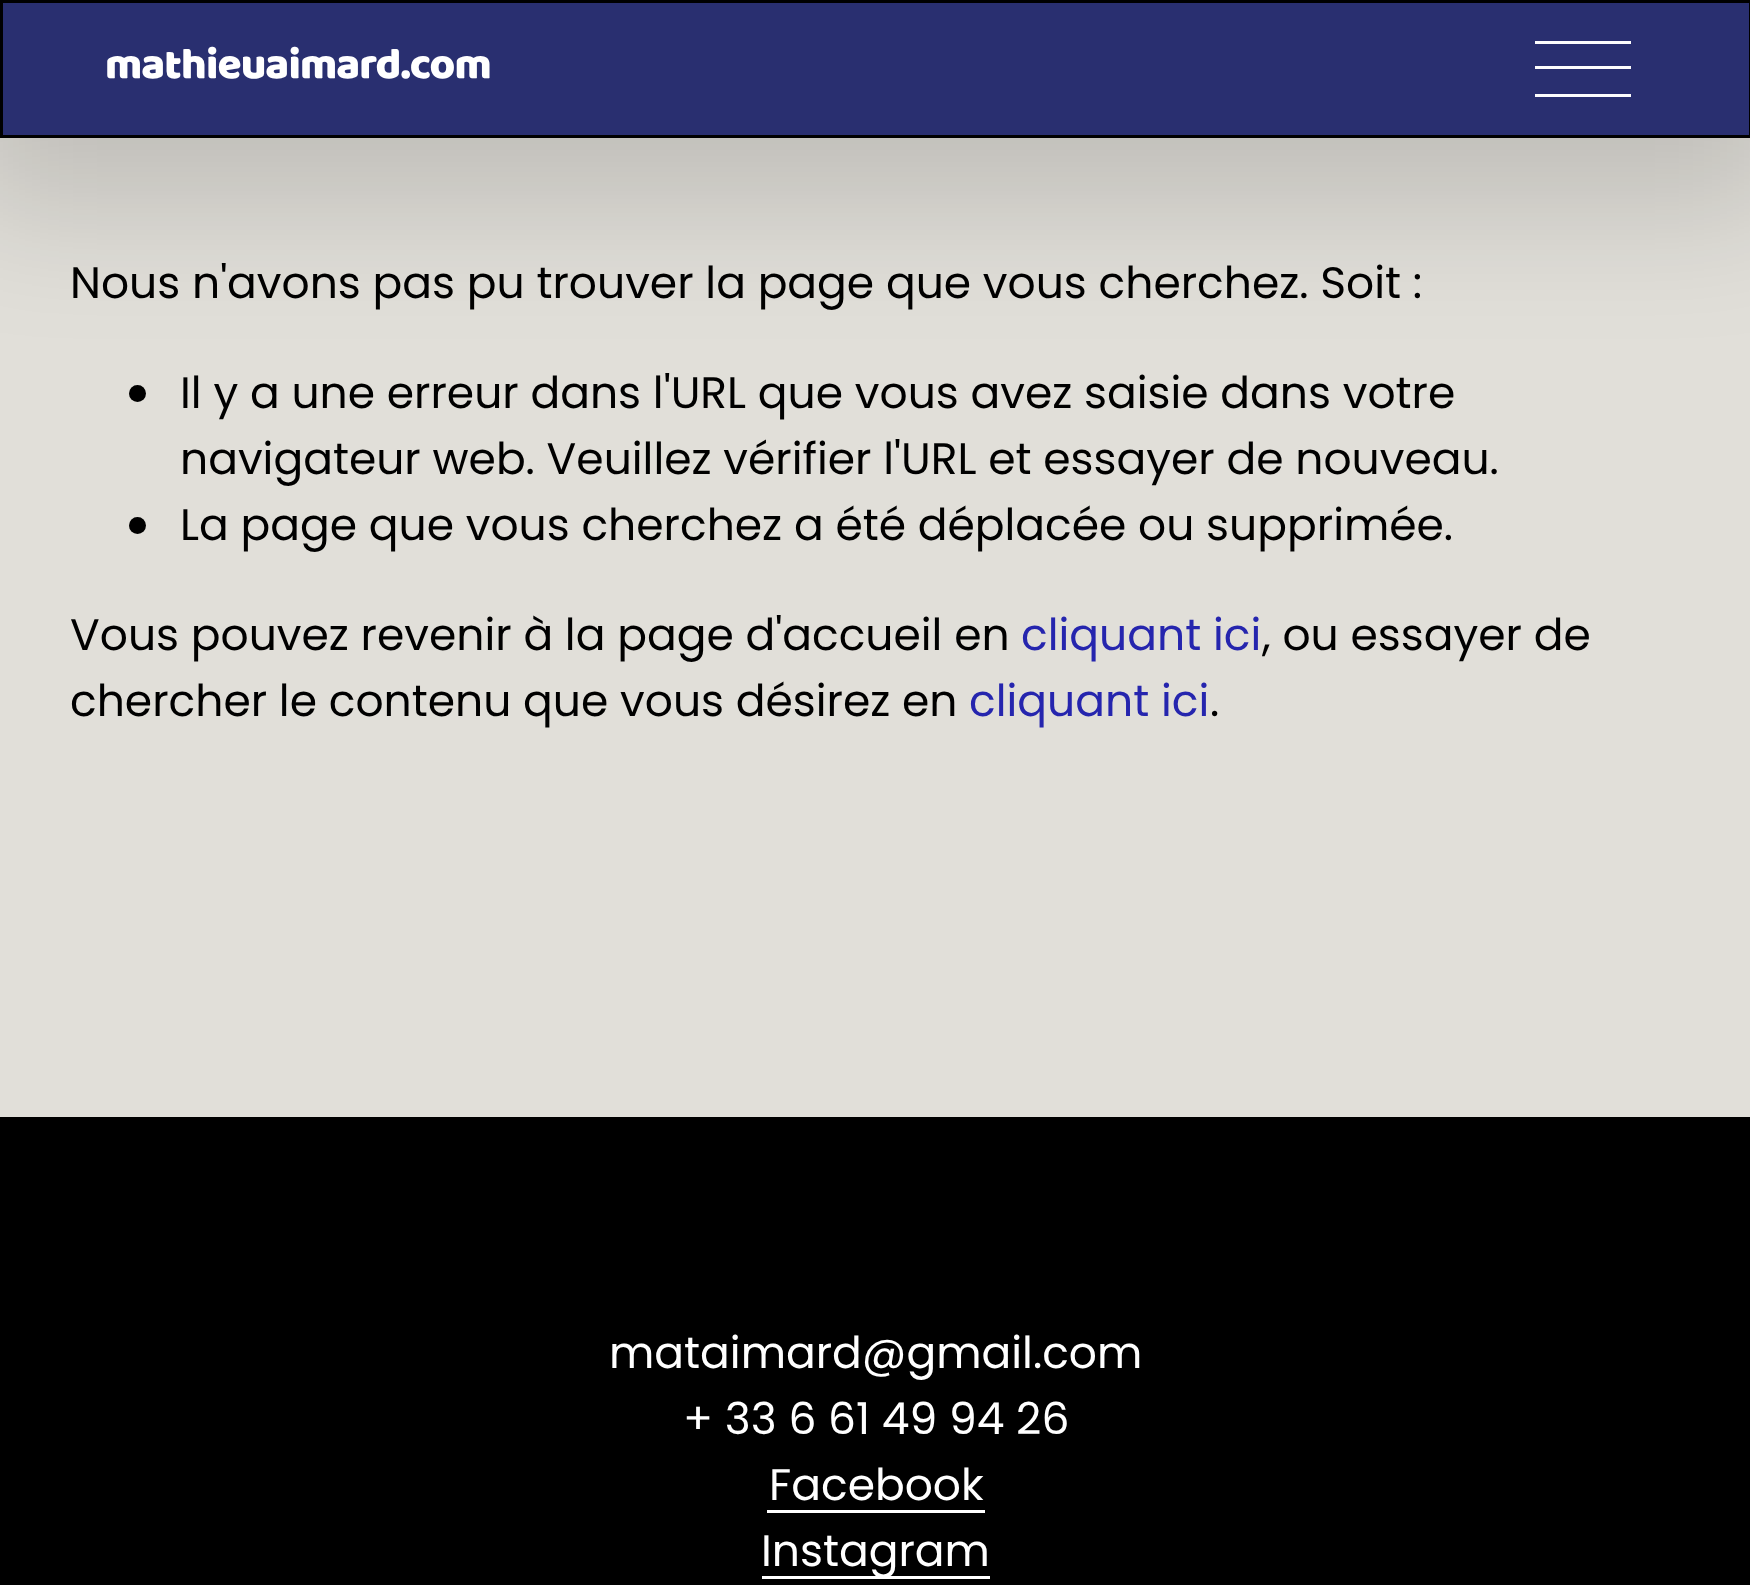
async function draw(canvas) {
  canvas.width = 1750;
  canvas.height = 1585;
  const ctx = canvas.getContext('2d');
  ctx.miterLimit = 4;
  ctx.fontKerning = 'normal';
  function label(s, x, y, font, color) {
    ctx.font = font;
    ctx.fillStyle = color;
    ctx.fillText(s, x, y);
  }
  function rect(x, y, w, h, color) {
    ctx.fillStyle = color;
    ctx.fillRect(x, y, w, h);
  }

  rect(0, 0, 1750, 1585, '#e1dfd9');
  ctx.fillStyle = '#000';
  ctx.beginPath();
  ctx.arc(137.5, 393.5, 8.5, 0, 2 * Math.PI);
  ctx.fill();
  ctx.fillStyle = '#00000026';
  ctx.filter = 'blur(66px)';
  ctx.beginPath();
  ctx.rect(-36, -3, 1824, 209);
  ctx.fill();
  ctx.filter = 'none';
  ctx.fillStyle = '#292f70';
  ctx.beginPath();
  ctx.rect(1.5, 1.5, 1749, 135);
  ctx.fill();
  ctx.strokeStyle = '#000';
  ctx.lineWidth = 3;
  ctx.stroke();
  ctx.letterSpacing = '-0.9px';
  label('mathieuaimard.com', 105, 78, '44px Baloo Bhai', '#fff');
  rect(1535, 41, 96, 3, '#fdfdfe');
  rect(1535, 66, 96, 3, '#fdfdfe');
  rect(1535, 94, 96, 3, '#fdfdfe');
  ctx.letterSpacing = '0px';
  label('Nous n\'avons pas pu trouver la page que vous cherchez. Soit :', 70, 298, '44px Poppins', '#000');
  label('Il y a une erreur dans l\'URL que vous avez saisie dans votre', 180, 408, '44px Poppins', '#000');
  label('navigateur web. Veuillez vérifier l\'URL et essayer de nouveau.', 180, 474, '44px Poppins', '#000');
  ctx.beginPath();
  ctx.arc(137.5, 525.5, 8.5, 0, 2 * Math.PI);
  ctx.fill();
  label('La page que vous cherchez a été déplacée ou supprimée.', 180, 540, '44px Poppins', '#000');
  label('Vous pouvez revenir à la page d\'accueil en', 70, 650, '44px Poppins', '#000');
  label('cliquant ici', 1021, 650, '44px Poppins', '#2525ae');
  label(', ou essayer de', 1262, 650, '44px Poppins', '#000');
  label('chercher le contenu que vous désirez en', 70, 716, '44px Poppins', '#000');
  label('cliquant ici', 969, 716, '44px Poppins', '#2525ae');
  label('.', 1210, 716, '44px Poppins', '#000');
  rect(0, 1117, 1750, 468, '#000');
  label('mataimard@gmail.com', 609, 1368, '44px Poppins', '#fff');
  label('+ 33 6 61 49 94 26', 683, 1434, '44px Poppins', '#fff');
  label('Facebook', 769, 1500, '44px Poppins', '#fff');
  rect(767, 1510, 218, 3, '#fff');
  rect(762, 1576, 228, 3, '#fff');
  label('Instagram', 761, 1566, '44px Poppins', '#fff');
}

draw(document.querySelector('canvas'));
